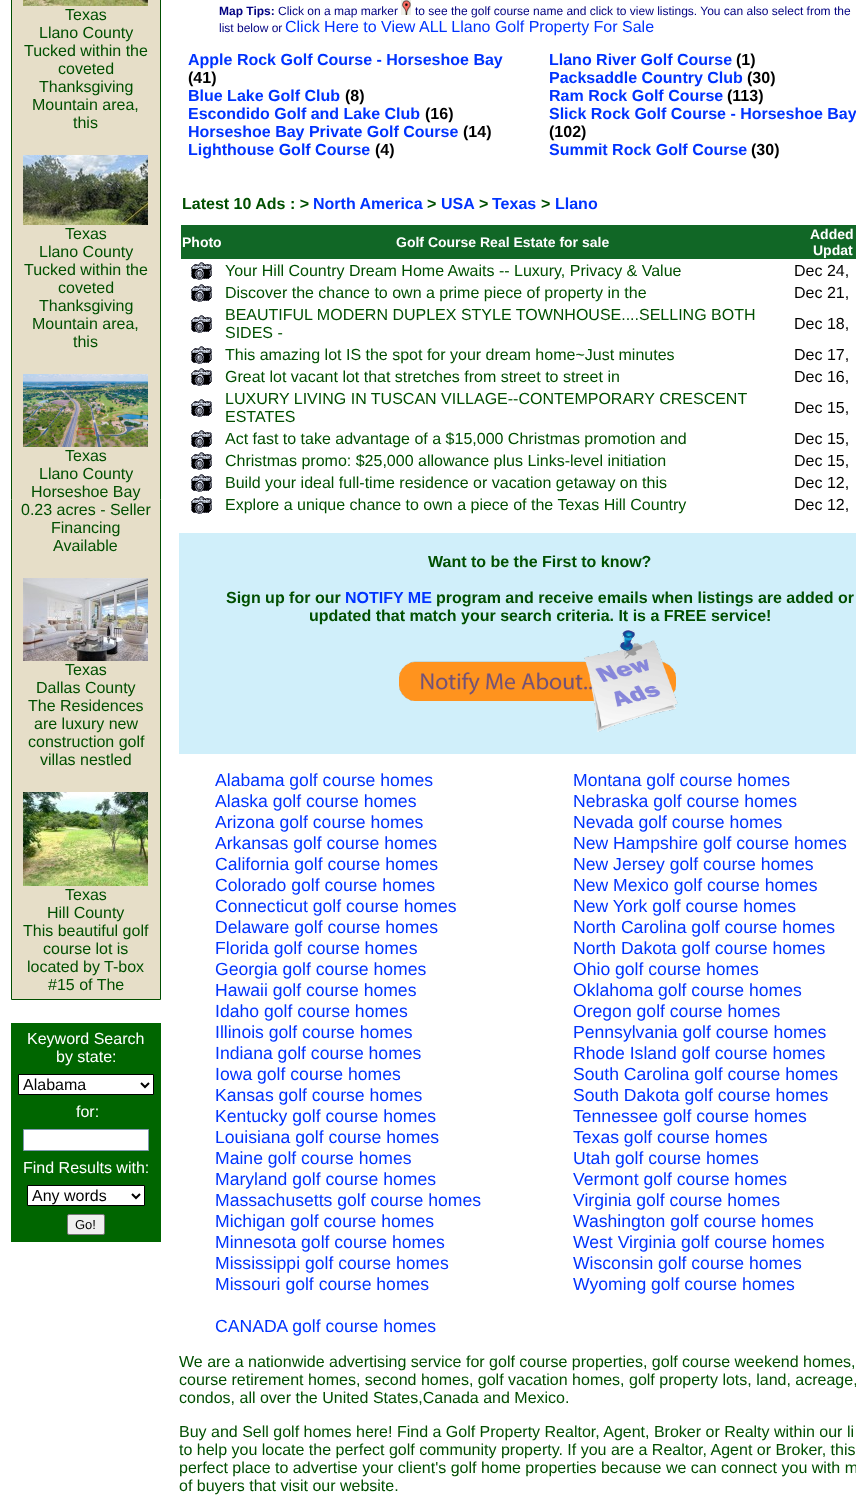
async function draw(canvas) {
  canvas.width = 856;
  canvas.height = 1505;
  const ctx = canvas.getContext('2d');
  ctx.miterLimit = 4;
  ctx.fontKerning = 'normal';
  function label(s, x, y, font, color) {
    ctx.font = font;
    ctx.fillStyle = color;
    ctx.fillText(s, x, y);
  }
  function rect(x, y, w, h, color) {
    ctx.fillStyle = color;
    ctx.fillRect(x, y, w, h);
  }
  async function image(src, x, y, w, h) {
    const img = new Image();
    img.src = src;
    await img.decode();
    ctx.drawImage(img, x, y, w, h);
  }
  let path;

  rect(0, 0, 856, 1505, '#fff');
  ctx.fillStyle = '#e6dec8';
  ctx.beginPath();
  ctx.rect(11.5, -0.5, 149, 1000);
  ctx.fill();
  ctx.strokeStyle = '#004f00';
  ctx.stroke();
  await image('assets/img1.png', 23, 0, 125, 6);
  label('Texas', 65, 20, '16px Liberation Sans', '#004f00');
  label('Llano County', 39, 38, '16px Liberation Sans', '#004f00');
  label('Tucked within the', 24, 56, '16px Liberation Sans', '#004f00');
  label('coveted', 58, 74, '16px Liberation Sans', '#004f00');
  label('Thanksgiving', 39, 92, '16px Liberation Sans', '#004f00');
  label('Mountain area,', 32, 110, '16px Liberation Sans', '#004f00');
  label('this', 73, 128, '16px Liberation Sans', '#004f00');
  await image('assets/img2.png', 23, 155, 125, 70);
  label('Texas', 65, 239, '16px Liberation Sans', '#004f00');
  label('Llano County', 39, 257, '16px Liberation Sans', '#004f00');
  label('Tucked within the', 24, 275, '16px Liberation Sans', '#004f00');
  label('coveted', 58, 293, '16px Liberation Sans', '#004f00');
  label('Thanksgiving', 39, 311, '16px Liberation Sans', '#004f00');
  label('Mountain area,', 32, 329, '16px Liberation Sans', '#004f00');
  label('this', 73, 347, '16px Liberation Sans', '#004f00');
  await image('assets/img3.png', 23, 374, 125, 73);
  label('Texas', 65, 461, '16px Liberation Sans', '#004f00');
  label('Llano County', 39, 479, '16px Liberation Sans', '#004f00');
  label('Horseshoe Bay', 31, 497, '16px Liberation Sans', '#004f00');
  label('0.23 acres - Seller', 21, 515, '16px Liberation Sans', '#004f00');
  label('Financing', 51, 533, '16px Liberation Sans', '#004f00');
  label('Available', 53, 551, '16px Liberation Sans', '#004f00');
  await image('assets/img4.png', 23, 578, 125, 83);
  label('Texas', 65, 675, '16px Liberation Sans', '#004f00');
  label('Dallas County', 36, 693, '16px Liberation Sans', '#004f00');
  label('The Residences', 28, 711, '16px Liberation Sans', '#004f00');
  label('are luxury new', 34, 729, '16px Liberation Sans', '#004f00');
  label('construction golf', 28, 747, '16px Liberation Sans', '#004f00');
  label('villas nestled', 40, 765, '16px Liberation Sans', '#004f00');
  await image('assets/img5.png', 23, 792, 125, 94);
  label('Texas', 65, 900, '16px Liberation Sans', '#004f00');
  label('Hill County', 47, 918, '16px Liberation Sans', '#004f00');
  label('This beautiful golf', 23, 936, '16px Liberation Sans', '#004f00');
  label('course lot is', 43, 954, '16px Liberation Sans', '#004f00');
  label('located by T-box', 27, 972, '16px Liberation Sans', '#004f00');
  label('#15 of The', 48, 990, '16px Liberation Sans', '#004f00');
  rect(11, 1023, 150, 219, '#060');
  label('Keyword Search', 27, 1044, '16px Liberation Sans', '#fff');
  label('by state:', 56, 1062, '16px Liberation Sans', '#fff');
  ctx.beginPath();
  ctx.rect(18.5, 1074.5, 135, 20);
  ctx.fill();
  ctx.strokeStyle = '#000';
  ctx.stroke();
  path = new Path2D('M141 1083L145 1087L149 1083');
  ctx.lineWidth = 2;
  ctx.stroke(path);
  label('Alabama', 23, 1090, '16px Liberation Sans', '#000');
  label('for:', 76, 1117, '16px Liberation Sans', '#fff');
  ctx.beginPath();
  ctx.rect(23.5, 1129.5, 125, 21);
  ctx.fill();
  ctx.strokeStyle = '#8098b0';
  ctx.lineWidth = 1;
  ctx.stroke();
  label('Find Results with:', 23, 1173, '16px Liberation Sans', '#fff');
  ctx.beginPath();
  ctx.rect(27.5, 1185.5, 117, 20);
  ctx.fill();
  ctx.strokeStyle = '#000';
  ctx.stroke();
  path = new Path2D('M132 1194L136 1198L140 1194');
  ctx.lineWidth = 2;
  ctx.stroke(path);
  label('Any words', 32, 1201, '16px Liberation Sans', '#000');
  ctx.fillStyle = '#efefef';
  ctx.beginPath();
  ctx.roundRect(67.5, 1214.5, 37, 20, 1.5);
  ctx.fill();
  ctx.strokeStyle = '#767676';
  ctx.lineWidth = 1;
  ctx.stroke();
  label('Go!', 75, 1229, '13px Liberation Sans', '#000');
  label('Map Tips:', 219, 15, 'bold 12px Liberation Sans', '#000080');
  label('Click on a map marker', 278, 15, '12px Liberation Sans', '#000080');
  await image('assets/img6.png', 401, 0, 10, 15);
  label('to see the golf course name and click to view listings. You can also select from the', 415, 15, '12px Liberation Sans', '#000080');
  label('list below or', 219, 32, '12px Liberation Sans', '#000080');
  label('Click Here to View ALL Llano Golf Property For Sale', 285, 32, '16px Liberation Sans', '#03f');
  label('Apple Rock Golf Course - Horseshoe Bay', 188, 65, 'bold 16px Liberation Sans', '#03f');
  label('(41)', 188, 83, 'bold 16px Liberation Sans', '#000');
  label('Blue Lake Golf Club', 188, 101, 'bold 16px Liberation Sans', '#03f');
  label('(8)', 345, 101, 'bold 16px Liberation Sans', '#000');
  label('Escondido Golf and Lake Club', 188, 119, 'bold 16px Liberation Sans', '#03f');
  label('(16)', 425, 119, 'bold 16px Liberation Sans', '#000');
  label('Horseshoe Bay Private Golf Course', 188, 137, 'bold 16px Liberation Sans', '#03f');
  label('(14)', 463, 137, 'bold 16px Liberation Sans', '#000');
  label('Lighthouse Golf Course', 188, 155, 'bold 16px Liberation Sans', '#03f');
  label('(4)', 375, 155, 'bold 16px Liberation Sans', '#000');
  label('Llano River Golf Course', 549, 65, 'bold 16px Liberation Sans', '#03f');
  label('(1)', 736, 65, 'bold 16px Liberation Sans', '#000');
  label('Packsaddle Country Club', 549, 83, 'bold 16px Liberation Sans', '#03f');
  label('(30)', 747, 83, 'bold 16px Liberation Sans', '#000');
  label('Ram Rock Golf Course', 549, 101, 'bold 16px Liberation Sans', '#03f');
  label('(113)', 727, 101, 'bold 16px Liberation Sans', '#000');
  label('Slick Rock Golf Course - Horseshoe Bay', 549, 119, 'bold 16px Liberation Sans', '#03f');
  label('(102)', 549, 137, 'bold 16px Liberation Sans', '#000');
  label('Summit Rock Golf Course', 549, 155, 'bold 16px Liberation Sans', '#03f');
  label('(30)', 751, 155, 'bold 16px Liberation Sans', '#000');
  label('Latest 10 Ads : >', 182, 209, 'bold 16px Liberation Sans', '#004f00');
  label('North America', 313, 209, 'bold 16px Liberation Sans', '#03f');
  label('>', 427, 209, 'bold 16px Liberation Sans', '#004f00');
  label('USA', 441, 209, 'bold 16px Liberation Sans', '#03f');
  label('>', 479, 209, 'bold 16px Liberation Sans', '#004f00');
  label('Texas', 492, 209, 'bold 16px Liberation Sans', '#03f');
  label('>', 541, 209, 'bold 16px Liberation Sans', '#004f00');
  label('Llano', 555, 209, 'bold 16px Liberation Sans', '#03f');
  rect(181, 225, 675, 34, '#116726');
  label('Photo', 182, 247, 'bold 14px Liberation Sans', '#fff');
  label('Golf Course Real Estate for sale', 396, 247, 'bold 14px Liberation Sans', '#fff');
  label('Added', 810, 239, 'bold 14px Liberation Sans', '#fff');
  label('Updat', 813, 255, 'bold 14px Liberation Sans', '#fff');
  await image('assets/img7.png', 191, 262, 21, 18);
  label('Your Hill Country Dream Home Awaits -- Luxury, Privacy & Value', 225, 276, '16px Liberation Sans', '#004f00');
  label('Dec 24,', 794, 276, '16px Liberation Sans', '#000');
  await image('assets/img7.png', 191, 284, 21, 18);
  label('Discover the chance to own a prime piece of property in the', 225, 298, '16px Liberation Sans', '#004f00');
  label('Dec 21,', 794, 298, '16px Liberation Sans', '#000');
  await image('assets/img7.png', 191, 315, 21, 18);
  label('BEAUTIFUL MODERN DUPLEX STYLE TOWNHOUSE....SELLING BOTH', 225, 320, '16px Liberation Sans', '#004f00');
  label('SIDES -', 225, 338, '16px Liberation Sans', '#004f00');
  label('Dec 18,', 794, 329, '16px Liberation Sans', '#000');
  await image('assets/img7.png', 191, 346, 21, 18);
  label('This amazing lot IS the spot for your dream home~Just minutes', 225, 360, '16px Liberation Sans', '#004f00');
  label('Dec 17,', 794, 360, '16px Liberation Sans', '#000');
  await image('assets/img7.png', 191, 368, 21, 18);
  label('Great lot vacant lot that stretches from street to street in', 225, 382, '16px Liberation Sans', '#004f00');
  label('Dec 16,', 794, 382, '16px Liberation Sans', '#000');
  await image('assets/img7.png', 191, 399, 21, 18);
  label('LUXURY LIVING IN TUSCAN VILLAGE--CONTEMPORARY CRESCENT', 225, 404, '16px Liberation Sans', '#004f00');
  label('ESTATES', 225, 422, '16px Liberation Sans', '#004f00');
  label('Dec 15,', 794, 413, '16px Liberation Sans', '#000');
  await image('assets/img7.png', 191, 430, 21, 18);
  label('Act fast to take advantage of a $15,000 Christmas promotion and', 225, 444, '16px Liberation Sans', '#004f00');
  label('Dec 15,', 794, 444, '16px Liberation Sans', '#000');
  await image('assets/img7.png', 191, 452, 21, 18);
  label('Christmas promo: $25,000 allowance plus Links-level initiation', 225, 466, '16px Liberation Sans', '#004f00');
  label('Dec 15,', 794, 466, '16px Liberation Sans', '#000');
  await image('assets/img7.png', 191, 474, 21, 18);
  label('Build your ideal full-time residence or vacation getaway on this', 225, 488, '16px Liberation Sans', '#004f00');
  label('Dec 12,', 794, 488, '16px Liberation Sans', '#000');
  await image('assets/img7.png', 191, 496, 21, 18);
  label('Explore a unique chance to own a piece of the Texas Hill Country', 225, 510, '16px Liberation Sans', '#004f00');
  label('Dec 12,', 794, 510, '16px Liberation Sans', '#000');
  rect(179, 533, 677, 221, '#d0effa');
  label('Want to be the First to know?', 428, 567, 'bold 16px Liberation Sans', '#004f00');
  label('Sign up for our', 226, 603, 'bold 16px Liberation Sans', '#004f00');
  label('NOTIFY ME', 345, 603, 'bold 16px Liberation Sans', '#03f');
  label('program and receive emails when listings are added or', 436, 603, 'bold 16px Liberation Sans', '#004f00');
  label('updated that match your search criteria. It is a FREE service!', 309, 621, 'bold 16px Liberation Sans', '#004f00');
  await image('assets/img8.png', 399, 629, 279, 103);
  label('Alabama golf course homes', 215, 786, '17.6px Liberation Sans', '#03f');
  label('Alaska golf course homes', 215, 807, '17.6px Liberation Sans', '#03f');
  label('Arizona golf course homes', 215, 828, '17.6px Liberation Sans', '#03f');
  label('Arkansas golf course homes', 215, 849, '17.6px Liberation Sans', '#03f');
  label('California golf course homes', 215, 870, '17.6px Liberation Sans', '#03f');
  label('Colorado golf course homes', 215, 891, '17.6px Liberation Sans', '#03f');
  label('Connecticut golf course homes', 215, 912, '17.6px Liberation Sans', '#03f');
  label('Delaware golf course homes', 215, 933, '17.6px Liberation Sans', '#03f');
  label('Florida golf course homes', 215, 954, '17.6px Liberation Sans', '#03f');
  label('Georgia golf course homes', 215, 975, '17.6px Liberation Sans', '#03f');
  label('Hawaii golf course homes', 215, 996, '17.6px Liberation Sans', '#03f');
  label('Idaho golf course homes', 215, 1017, '17.6px Liberation Sans', '#03f');
  label('Illinois golf course homes', 215, 1038, '17.6px Liberation Sans', '#03f');
  label('Indiana golf course homes', 215, 1059, '17.6px Liberation Sans', '#03f');
  label('Iowa golf course homes', 215, 1080, '17.6px Liberation Sans', '#03f');
  label('Kansas golf course homes', 215, 1101, '17.6px Liberation Sans', '#03f');
  label('Kentucky golf course homes', 215, 1122, '17.6px Liberation Sans', '#03f');
  label('Louisiana golf course homes', 215, 1143, '17.6px Liberation Sans', '#03f');
  label('Maine golf course homes', 215, 1164, '17.6px Liberation Sans', '#03f');
  label('Maryland golf course homes', 215, 1185, '17.6px Liberation Sans', '#03f');
  label('Massachusetts golf course homes', 215, 1206, '17.6px Liberation Sans', '#03f');
  label('Michigan golf course homes', 215, 1227, '17.6px Liberation Sans', '#03f');
  label('Minnesota golf course homes', 215, 1248, '17.6px Liberation Sans', '#03f');
  label('Mississippi golf course homes', 215, 1269, '17.6px Liberation Sans', '#03f');
  label('Missouri golf course homes', 215, 1290, '17.6px Liberation Sans', '#03f');
  label('Montana golf course homes', 573, 786, '17.6px Liberation Sans', '#03f');
  label('Nebraska golf course homes', 573, 807, '17.6px Liberation Sans', '#03f');
  label('Nevada golf course homes', 573, 828, '17.6px Liberation Sans', '#03f');
  label('New Hampshire golf course homes', 573, 849, '17.6px Liberation Sans', '#03f');
  label('New Jersey golf course homes', 573, 870, '17.6px Liberation Sans', '#03f');
  label('New Mexico golf course homes', 573, 891, '17.6px Liberation Sans', '#03f');
  label('New York golf course homes', 573, 912, '17.6px Liberation Sans', '#03f');
  label('North Carolina golf course homes', 573, 933, '17.6px Liberation Sans', '#03f');
  label('North Dakota golf course homes', 573, 954, '17.6px Liberation Sans', '#03f');
  label('Ohio golf course homes', 573, 975, '17.6px Liberation Sans', '#03f');
  label('Oklahoma golf course homes', 573, 996, '17.6px Liberation Sans', '#03f');
  label('Oregon golf course homes', 573, 1017, '17.6px Liberation Sans', '#03f');
  label('Pennsylvania golf course homes', 573, 1038, '17.6px Liberation Sans', '#03f');
  label('Rhode Island golf course homes', 573, 1059, '17.6px Liberation Sans', '#03f');
  label('South Carolina golf course homes', 573, 1080, '17.6px Liberation Sans', '#03f');
  label('South Dakota golf course homes', 573, 1101, '17.6px Liberation Sans', '#03f');
  label('Tennessee golf course homes', 573, 1122, '17.6px Liberation Sans', '#03f');
  label('Texas golf course homes', 573, 1143, '17.6px Liberation Sans', '#03f');
  label('Utah golf course homes', 573, 1164, '17.6px Liberation Sans', '#03f');
  label('Vermont golf course homes', 573, 1185, '17.6px Liberation Sans', '#03f');
  label('Virginia golf course homes', 573, 1206, '17.6px Liberation Sans', '#03f');
  label('Washington golf course homes', 573, 1227, '17.6px Liberation Sans', '#03f');
  label('West Virginia golf course homes', 573, 1248, '17.6px Liberation Sans', '#03f');
  label('Wisconsin golf course homes', 573, 1269, '17.6px Liberation Sans', '#03f');
  label('Wyoming golf course homes', 573, 1290, '17.6px Liberation Sans', '#03f');
  label('CANADA golf course homes', 215, 1332, '17.6px Liberation Sans', '#03f');
  label('We are a nationwide advertising service for golf course properties, golf course weekend homes,', 179, 1367, '16px Liberation Sans', '#004f00');
  label('course retirement homes, second homes, golf vacation homes, golf property lots, land, acreage,', 179, 1385, '16px Liberation Sans', '#004f00');
  label('condos, all over the United States,Canada and Mexico.', 179, 1403, '16px Liberation Sans', '#004f00');
  label('Buy and Sell golf homes here! Find a Golf Property Realtor, Agent, Broker or Realty within our li', 179, 1437, '16px Liberation Sans', '#004f00');
  label('to help you locate the perfect golf community property. If you are a Realtor, Agent or Broker, this', 179, 1455, '16px Liberation Sans', '#004f00');
  label('perfect place to advertise your client\'s golf home properties because we can connect you with m', 179, 1473, '16px Liberation Sans', '#004f00');
  label('of buyers that visit our website.', 179, 1491, '16px Liberation Sans', '#004f00');
}

draw(document.querySelector('canvas'));
